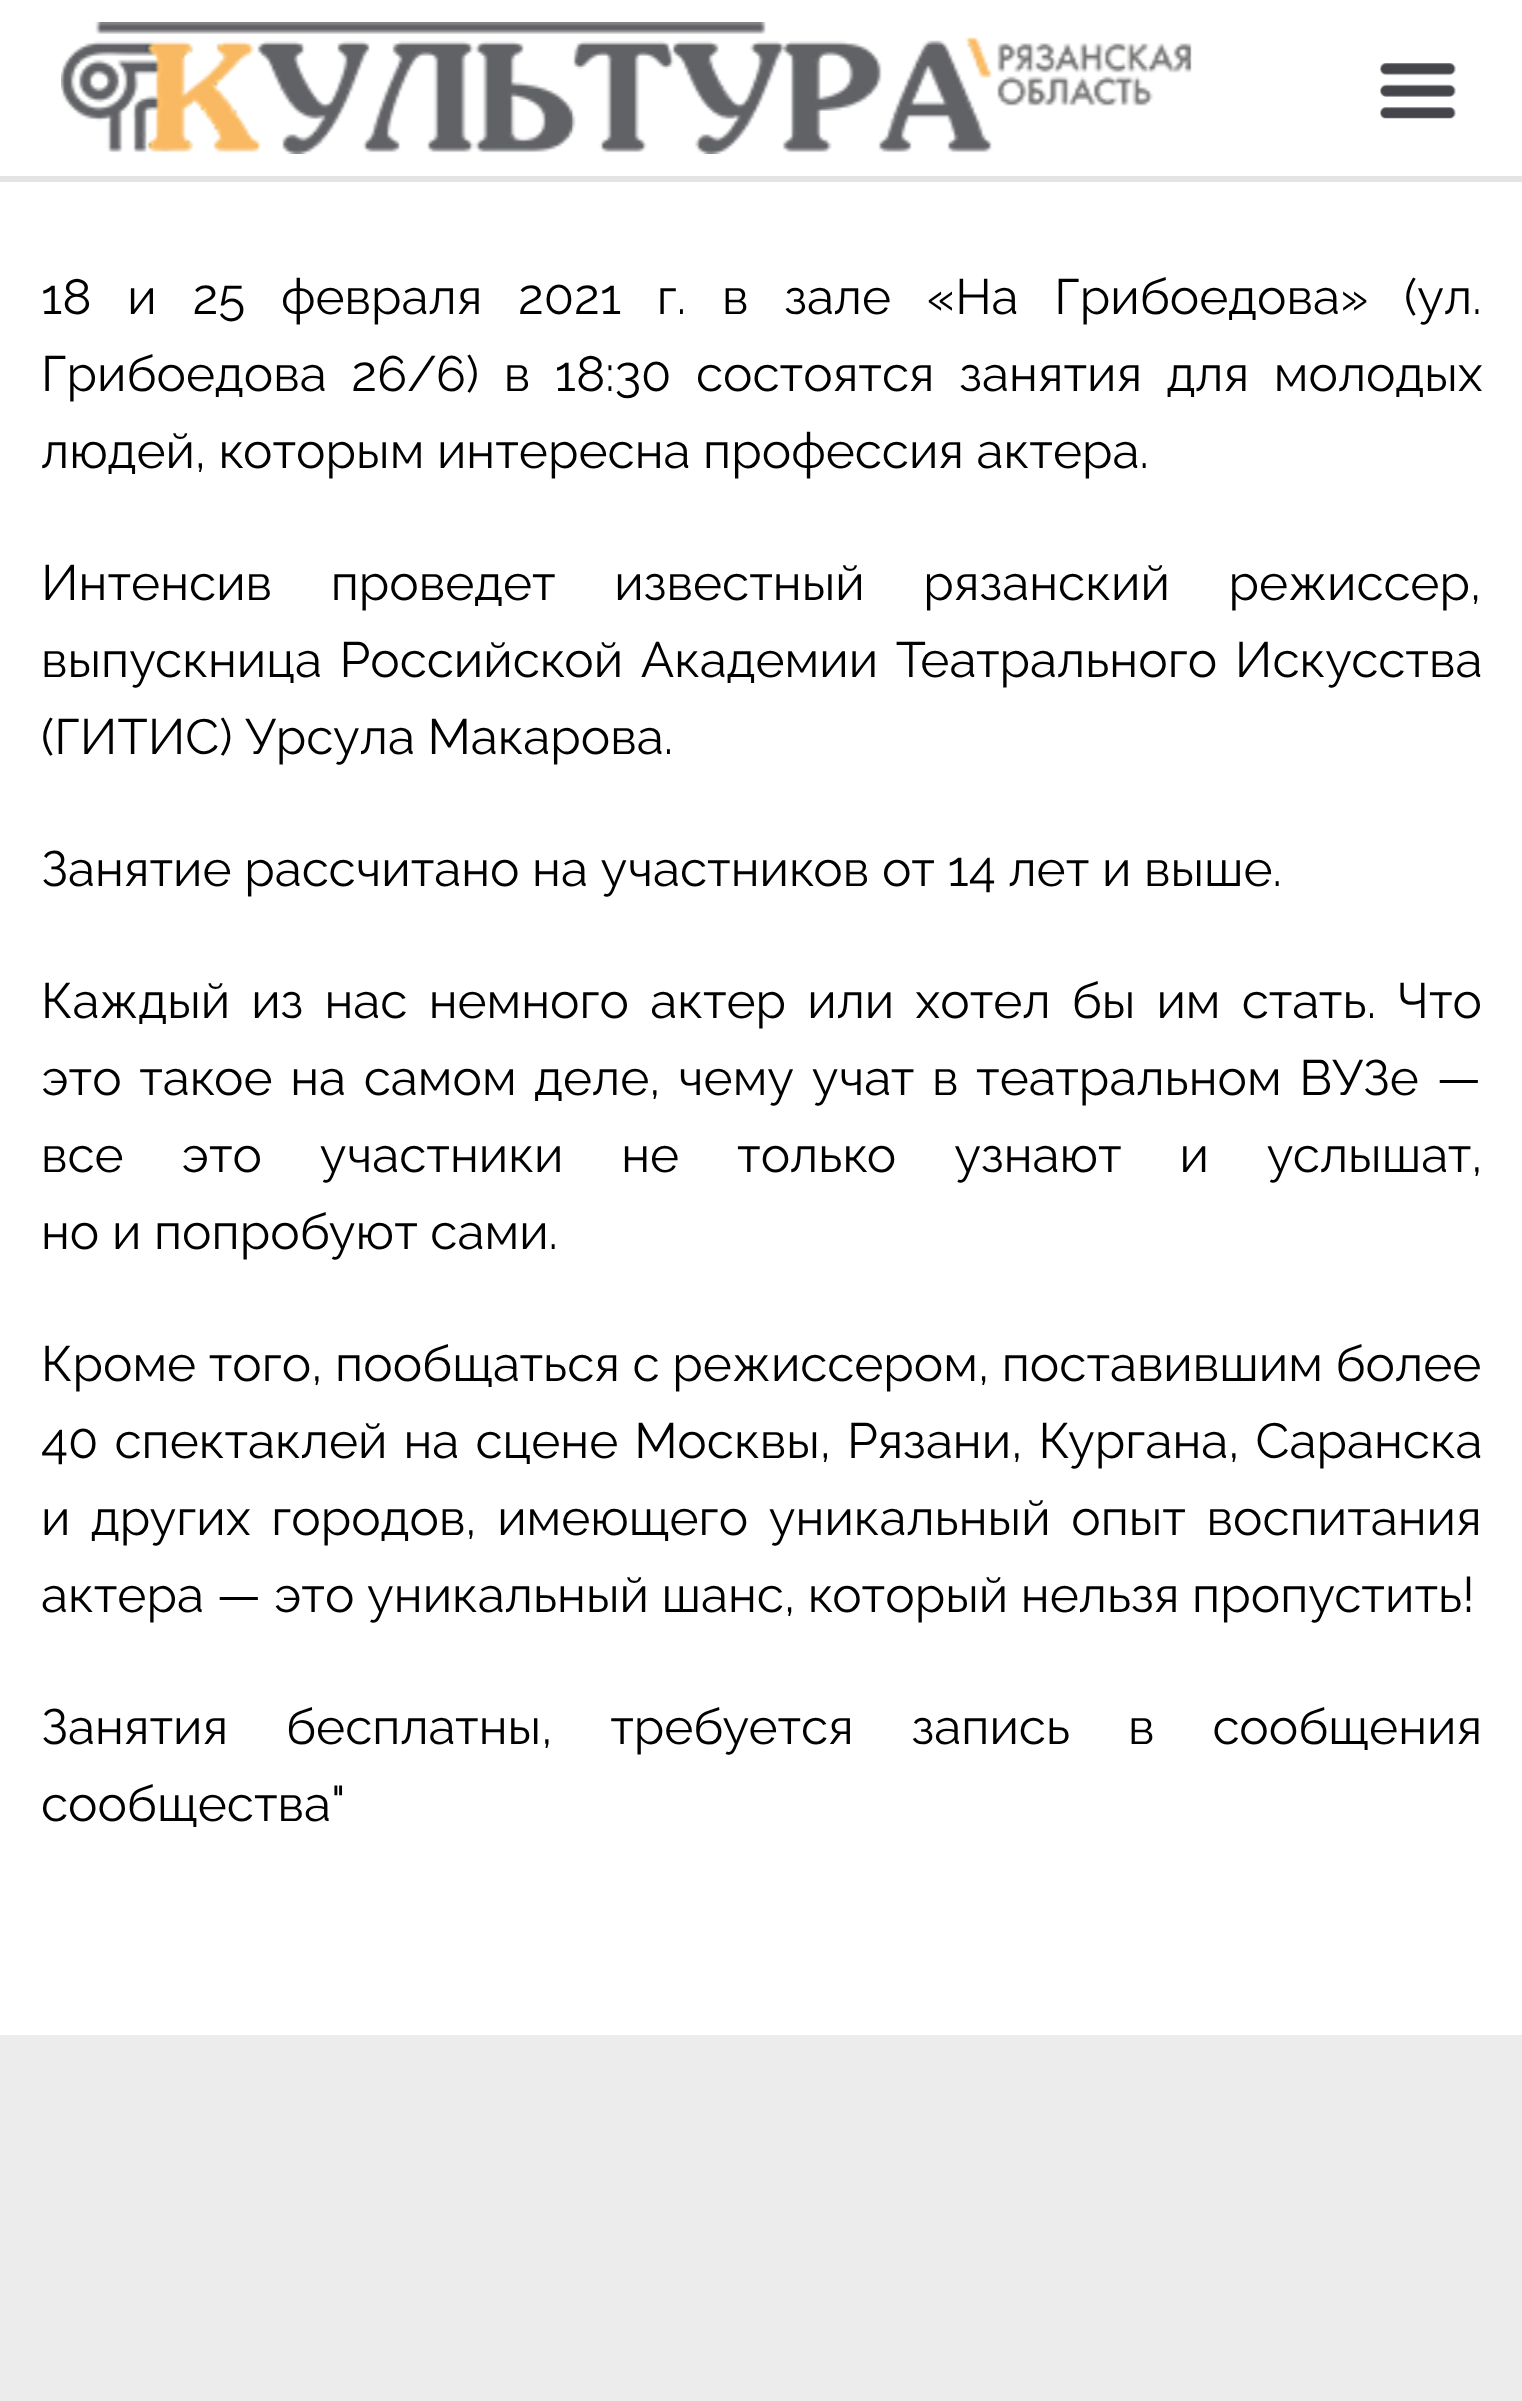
async function draw(canvas) {
  canvas.width = 1522;
  canvas.height = 2401;
  const ctx = canvas.getContext('2d');
  ctx.miterLimit = 4;
  ctx.fontKerning = 'normal';
  function label(s, x, y, font, color) {
    ctx.font = font;
    ctx.fillStyle = color;
    ctx.fillText(s, x, y);
  }
  function rect(x, y, w, h, color) {
    ctx.fillStyle = color;
    ctx.fillRect(x, y, w, h);
  }
  async function image(src, x, y, w, h) {
    const img = new Image();
    img.src = src;
    await img.decode();
    ctx.drawImage(img, x, y, w, h);
  }

  rect(0, 0, 1522, 2401, '#fff');
  rect(0, 176, 1522, 6, '#e4e4e4');
  await image('assets/img1.png', 61, 22, 1131, 132);
  await image('assets/img2.png', 1380, 63, 76, 56);
  ctx.wordSpacing = '23.1px';
  label('18 и 25 февраля 2021 г. в зале «На Грибоедова» (ул.', 41, 314, '100 49.5px Raleway', '#000');
  ctx.wordSpacing = '12px';
  label('Грибоедова 26/6) в 18:30 состоятся занятия для молодых', 41, 391, '100 49.5px Raleway', '#000');
  ctx.wordSpacing = '0px';
  label('людей, которым интересна профессия актера.', 41, 468, '100 49.5px Raleway', '#000');
  ctx.wordSpacing = '46px';
  label('Интенсив проведет известный рязанский режиссер,', 41, 600, '100 49.5px Raleway', '#000');
  ctx.wordSpacing = '5px';
  label('выпускница Российской Академии Театрального Искусства', 41, 677, '100 49.5px Raleway', '#000');
  ctx.wordSpacing = '0px';
  label('(ГИТИС) Урсула Макарова.', 41, 754, '100 49.5px Raleway', '#000');
  label('Занятие рассчитано на участников от 14 лет и выше.', 41, 886, '100 49.5px Raleway', '#000');
  ctx.wordSpacing = '8.5px';
  label('Каждый из нас немного актер или хотел бы им стать. Что', 41, 1018, '100 49.5px Raleway', '#000');
  ctx.wordSpacing = '5px';
  label('это такое на самом деле, чему учат в театральном ВУЗе —', 41, 1095, '100 49.5px Raleway', '#000');
  ctx.wordSpacing = '45.25px';
  label('все это участники не только узнают и услышат,', 41, 1172, '100 49.5px Raleway', '#000');
  ctx.wordSpacing = '0px';
  label('но и попробуют сами.', 41, 1249, '100 49.5px Raleway', '#000');
  label('Кроме того, пообщаться с режиссером, поставившим более', 41, 1381, '100 49.5px Raleway', '#000');
  ctx.wordSpacing = '3.5px';
  label('40 спектаклей на сцене Москвы, Рязани, Кургана, Саранска', 41, 1458, '100 49.5px Raleway', '#000');
  ctx.wordSpacing = '8px';
  label('и других городов, имеющего уникальный опыт воспитания', 41, 1535, '100 49.5px Raleway', '#000');
  ctx.wordSpacing = '0px';
  label('актера — это уникальный шанс, который нельзя пропустить!', 41, 1612, '100 49.5px Raleway', '#000');
  ctx.wordSpacing = '45.25px';
  label('Занятия бесплатны, требуется запись в сообщения', 41, 1744, '100 49.5px Raleway', '#000');
  ctx.wordSpacing = '0px';
  label('сообщества"', 41, 1821, '100 49.5px Raleway', '#000');
  rect(0, 2035, 1522, 366, '#ececec');
}

draw(document.querySelector('canvas'));
